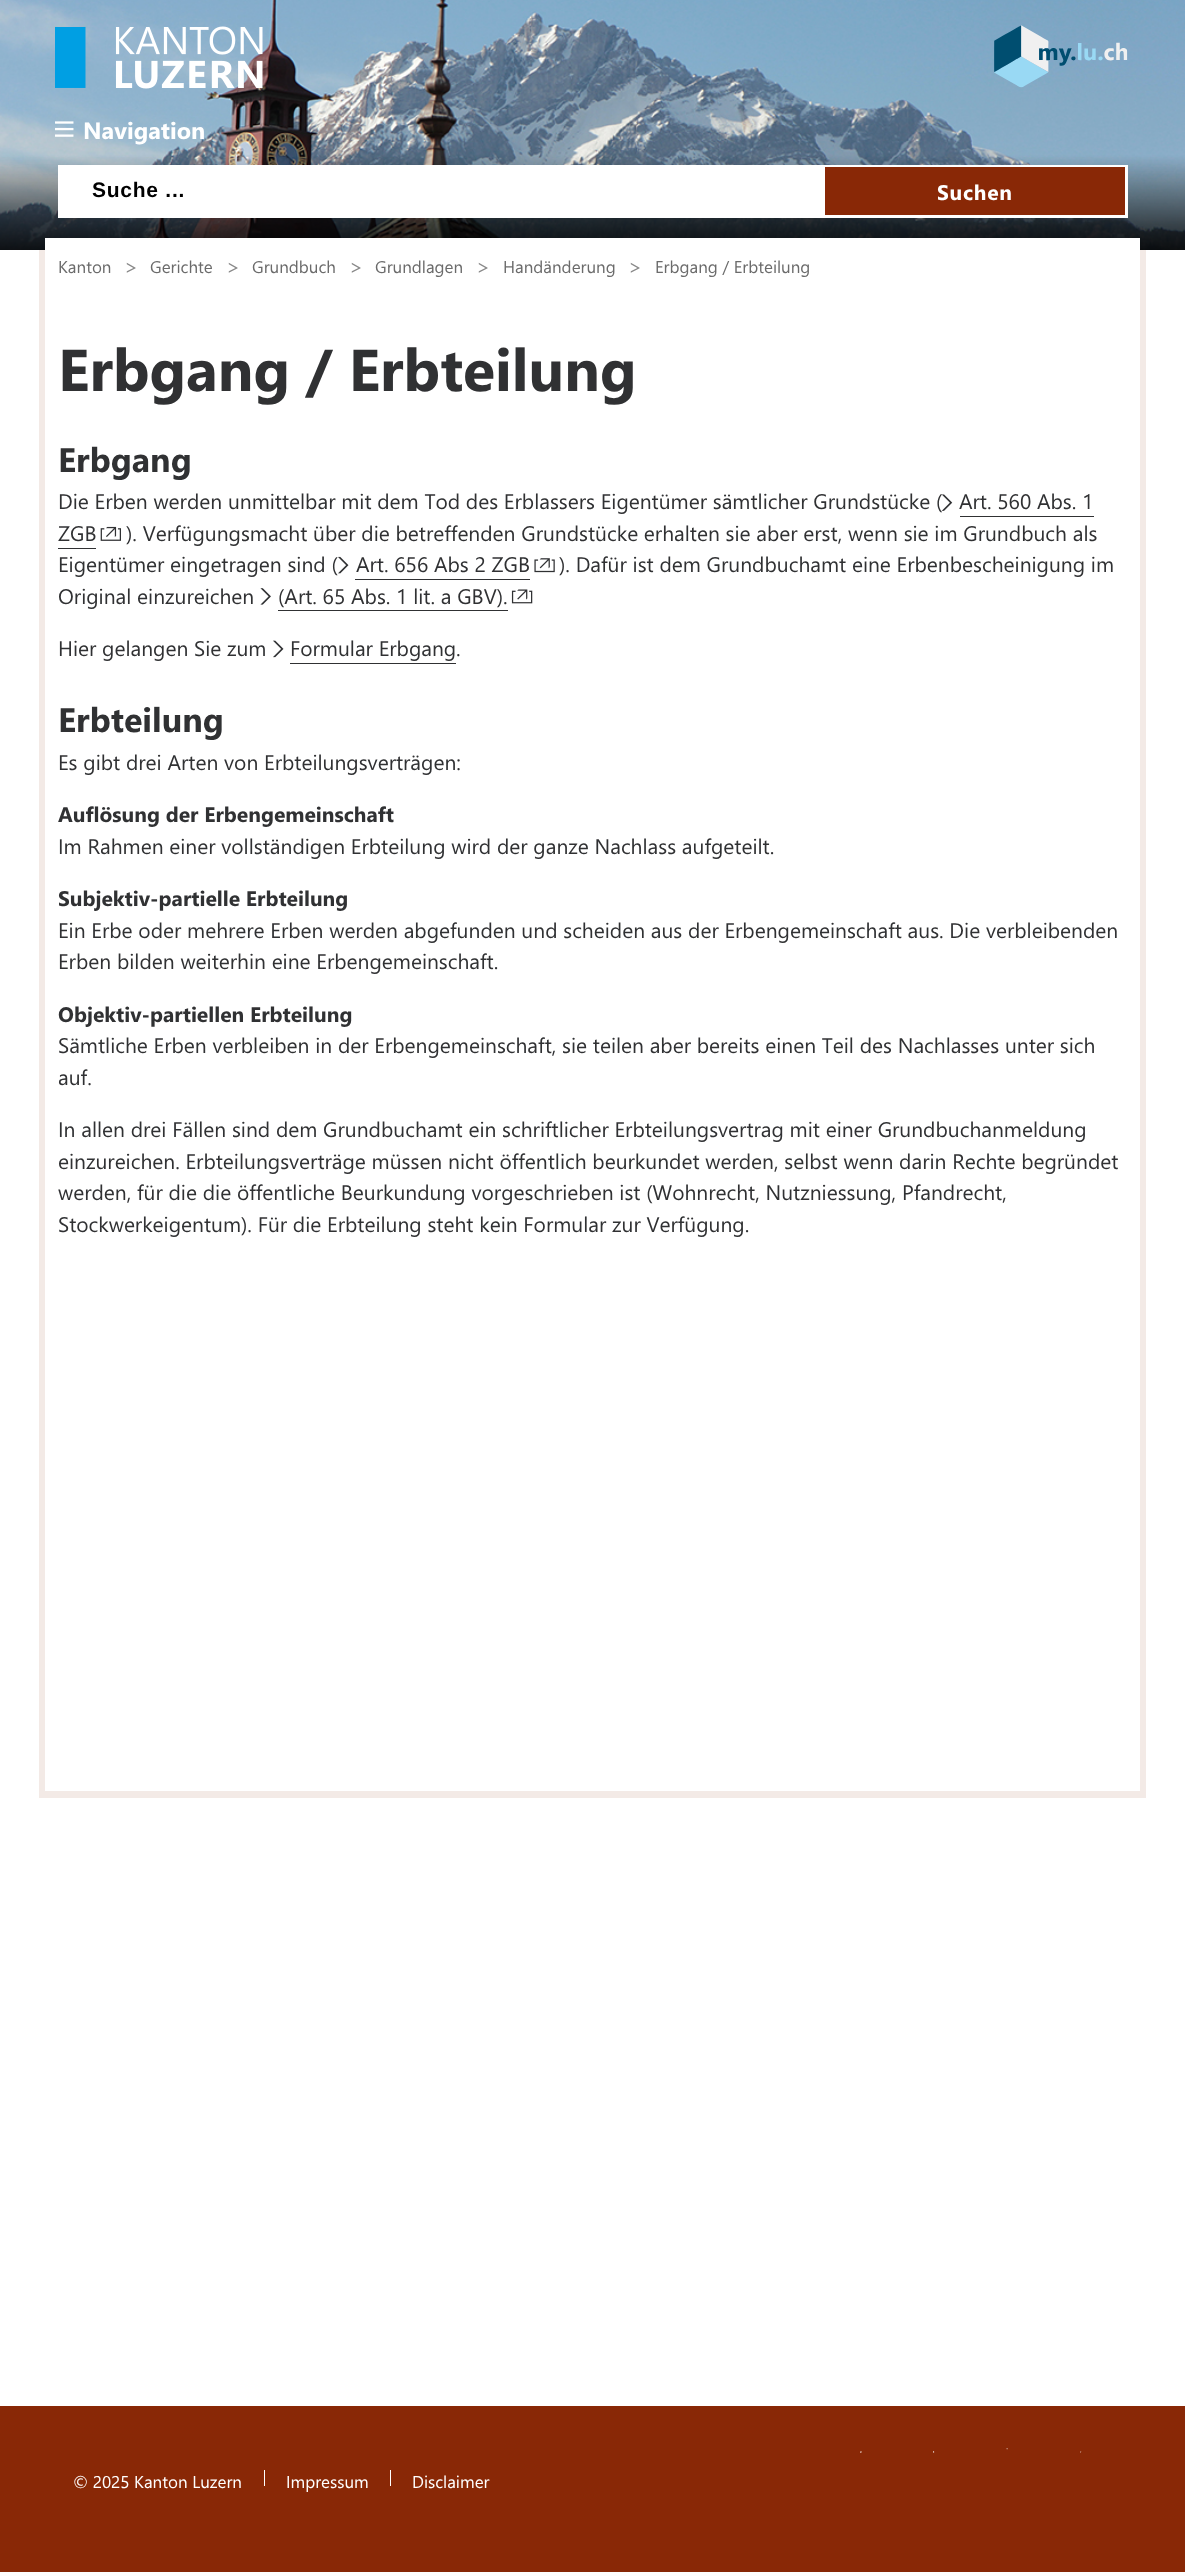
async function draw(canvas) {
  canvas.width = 1185;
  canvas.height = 2572;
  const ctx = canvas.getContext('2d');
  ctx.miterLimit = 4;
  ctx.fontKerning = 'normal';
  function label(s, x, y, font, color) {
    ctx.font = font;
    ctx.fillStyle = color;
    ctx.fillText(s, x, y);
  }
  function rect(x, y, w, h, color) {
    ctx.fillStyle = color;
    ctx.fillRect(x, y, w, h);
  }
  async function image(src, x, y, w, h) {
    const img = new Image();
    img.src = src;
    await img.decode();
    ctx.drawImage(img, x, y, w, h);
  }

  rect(0, 0, 1185, 2572, '#fff');
  await image('assets/img1.png', 0, 0, 1185, 250);
  await image('assets/img2.png', 55, 26, 208, 63);
  await image('assets/img3.png', 994, 25, 134, 63);
  await image('assets/img4.png', 55, 121, 19, 16);
  label('Navigation', 83, 139, 'bold 23.5px Segoe UI', '#fff');
  rect(58, 165, 1070, 53, '#fff');
  ctx.letterSpacing = '0.75px';
  label('Suche ...', 92, 197, 'bold 21px Liberation Sans', '#000');
  rect(825, 167, 300, 48, '#892806');
  label('Suchen', 937, 200, 'bold 21px Segoe UI', '#fff');
  rect(45, 238, 1095, 12, '#fff');
  rect(45, 1791, 1095, 7, '#f3eae6');
  rect(39, 250, 6, 1548, '#f3eae6');
  ctx.letterSpacing = '0px';
  label('Kanton', 58, 273, '17px Segoe UI', '#6b6b6b');
  label('>', 124, 274, '21px Segoe UI', '#898989');
  label('Gerichte', 150, 273, '17px Segoe UI', '#6b6b6b');
  label('>', 226, 274, '21px Segoe UI', '#898989');
  label('Grundbuch', 252, 273, '17px Segoe UI', '#6b6b6b');
  label('>', 349, 274, '21px Segoe UI', '#898989');
  label('Grundlagen', 375, 273, '17px Segoe UI', '#6b6b6b');
  label('>', 476, 274, '21px Segoe UI', '#898989');
  label('Handänderung', 503, 273, '17px Segoe UI', '#6b6b6b');
  label('>', 628, 274, '21px Segoe UI', '#898989');
  label('Erbgang / Erbteilung', 655, 273, '17px Segoe UI', '#6b6b6b');
  rect(1140, 250, 6, 1548, '#f3eae6');
  label('Erbgang / Erbteilung', 58, 391, 'bold 59px Segoe UI', '#303133');
  label('Erbgang', 58, 472, 'bold 34px Segoe UI', '#303133');
  await image('assets/img5.png', 941, 494, 12, 17);
  label('Art. 560 Abs. 1', 959, 509, '21px Segoe UI', '#303133');
  rect(960, 516, 134, 1, '#303133');
  label('ZGB', 58, 541, '21px Segoe UI', '#303133');
  rect(58, 548, 38, 1, '#303133');
  await image('assets/img6.png', 100, 526, 21, 15);
  label('Die Erben werden unmittelbar mit dem Tod des Erblassers Eigentümer sämtlicher Grundstücke (', 58, 509, '21px Segoe UI', '#303133');
  label('). Verfügungsmacht über die betreffenden Grundstücke erhalten sie aber erst, wenn sie im Grundbuch als', 126, 541, '21px Segoe UI', '#303133');
  label('Eigentümer eingetragen sind (', 58, 572, '21px Segoe UI', '#303133');
  await image('assets/img7.png', 338, 556, 11, 18);
  label('Art. 656 Abs 2 ZGB', 356, 572, '21px Segoe UI', '#303133');
  rect(355, 579, 175, 1, '#303133');
  await image('assets/img8.png', 534, 558, 21, 15);
  label('). Dafür ist dem Grundbuchamt eine Erbenbescheinigung im', 559, 572, '21px Segoe UI', '#303133');
  label('Original einzureichen', 58, 604, '21px Segoe UI', '#303133');
  await image('assets/img9.png', 260, 588, 11, 17);
  label('(Art. 65 Abs. 1 lit. a GBV).', 278, 604, '21px Segoe UI', '#303133');
  rect(278, 610, 230, 1, '#303133');
  await image('assets/img10.png', 511, 589, 22, 15);
  label('Hier gelangen Sie zum', 58, 656, '21px Segoe UI', '#303133');
  await image('assets/img11.png', 273, 640, 11, 18);
  label('Formular Erbgang', 290, 656, '21px Segoe UI', '#303133');
  rect(290, 663, 166, 1, '#303133');
  label('.', 456, 656, '21px Segoe UI', '#303133');
  label('Erbteilung', 58, 732, 'bold 34px Segoe UI', '#303133');
  label('Es gibt drei Arten von Erbteilungsverträgen:', 58, 770, '21px Segoe UI', '#303133');
  label('Auflösung der Erbengemeinschaft', 58, 822, 'bold 21px Segoe UI', '#303133');
  label('Im Rahmen einer vollständigen Erbteilung wird der ganze Nachlass aufgeteilt.', 58, 854, '21px Segoe UI', '#303133');
  label('Subjektiv-partielle Erbteilung', 58, 906, 'bold 21px Segoe UI', '#303133');
  label('Ein Erbe oder mehrere Erben werden abgefunden und scheiden aus der Erbengemeinschaft aus. Die verbleibenden', 58, 938, '21px Segoe UI', '#303133');
  label('Erben bilden weiterhin eine Erbengemeinschaft.', 58, 969, '21px Segoe UI', '#303133');
  label('Objektiv-partiellen Erbteilung', 58, 1022, 'bold 21px Segoe UI', '#303133');
  label('Sämtliche Erben verbleiben in der Erbengemeinschaft, sie teilen aber bereits einen Teil des Nachlasses unter sich', 58, 1053, '21px Segoe UI', '#303133');
  label('auf.', 58, 1085, '21px Segoe UI', '#303133');
  label('In allen drei Fällen sind dem Grundbuchamt ein schriftlicher Erbteilungsvertrag mit einer Grundbuchanmeldung', 58, 1137, '21px Segoe UI', '#303133');
  label('einzureichen. Erbteilungsverträge müssen nicht öffentlich beurkundet werden, selbst wenn darin Rechte begründet', 58, 1169, '21px Segoe UI', '#303133');
  label('werden, für die die öffentliche Beurkundung vorgeschrieben ist (Wohnrecht, Nutzniessung, Pfandrecht,', 58, 1200, '21px Segoe UI', '#303133');
  label('Stockwerkeigentum). Für die Erbteilung steht kein Formular zur Verfügung.', 58, 1232, '21px Segoe UI', '#303133');
  rect(0, 2406, 1185, 166, '#892806');
  await image('assets/img12.png', 1006, 2448, 2, 2);
  await image('assets/img13.png', 860, 2451, 2, 2);
  await image('assets/img14.png', 933, 2451, 2, 2);
  await image('assets/img15.png', 1080, 2451, 2, 2);
  label('© 2025 Kanton Luzern', 73, 2488, '17px Segoe UI', '#fff');
  rect(264, 2470, 1, 16, '#fff');
  label('Impressum', 286, 2488, '17px Segoe UI', '#fff');
  rect(390, 2470, 1, 16, '#fff');
  label('Disclaimer', 412, 2488, '17px Segoe UI', '#fff');
}

draw(document.querySelector('canvas'));
